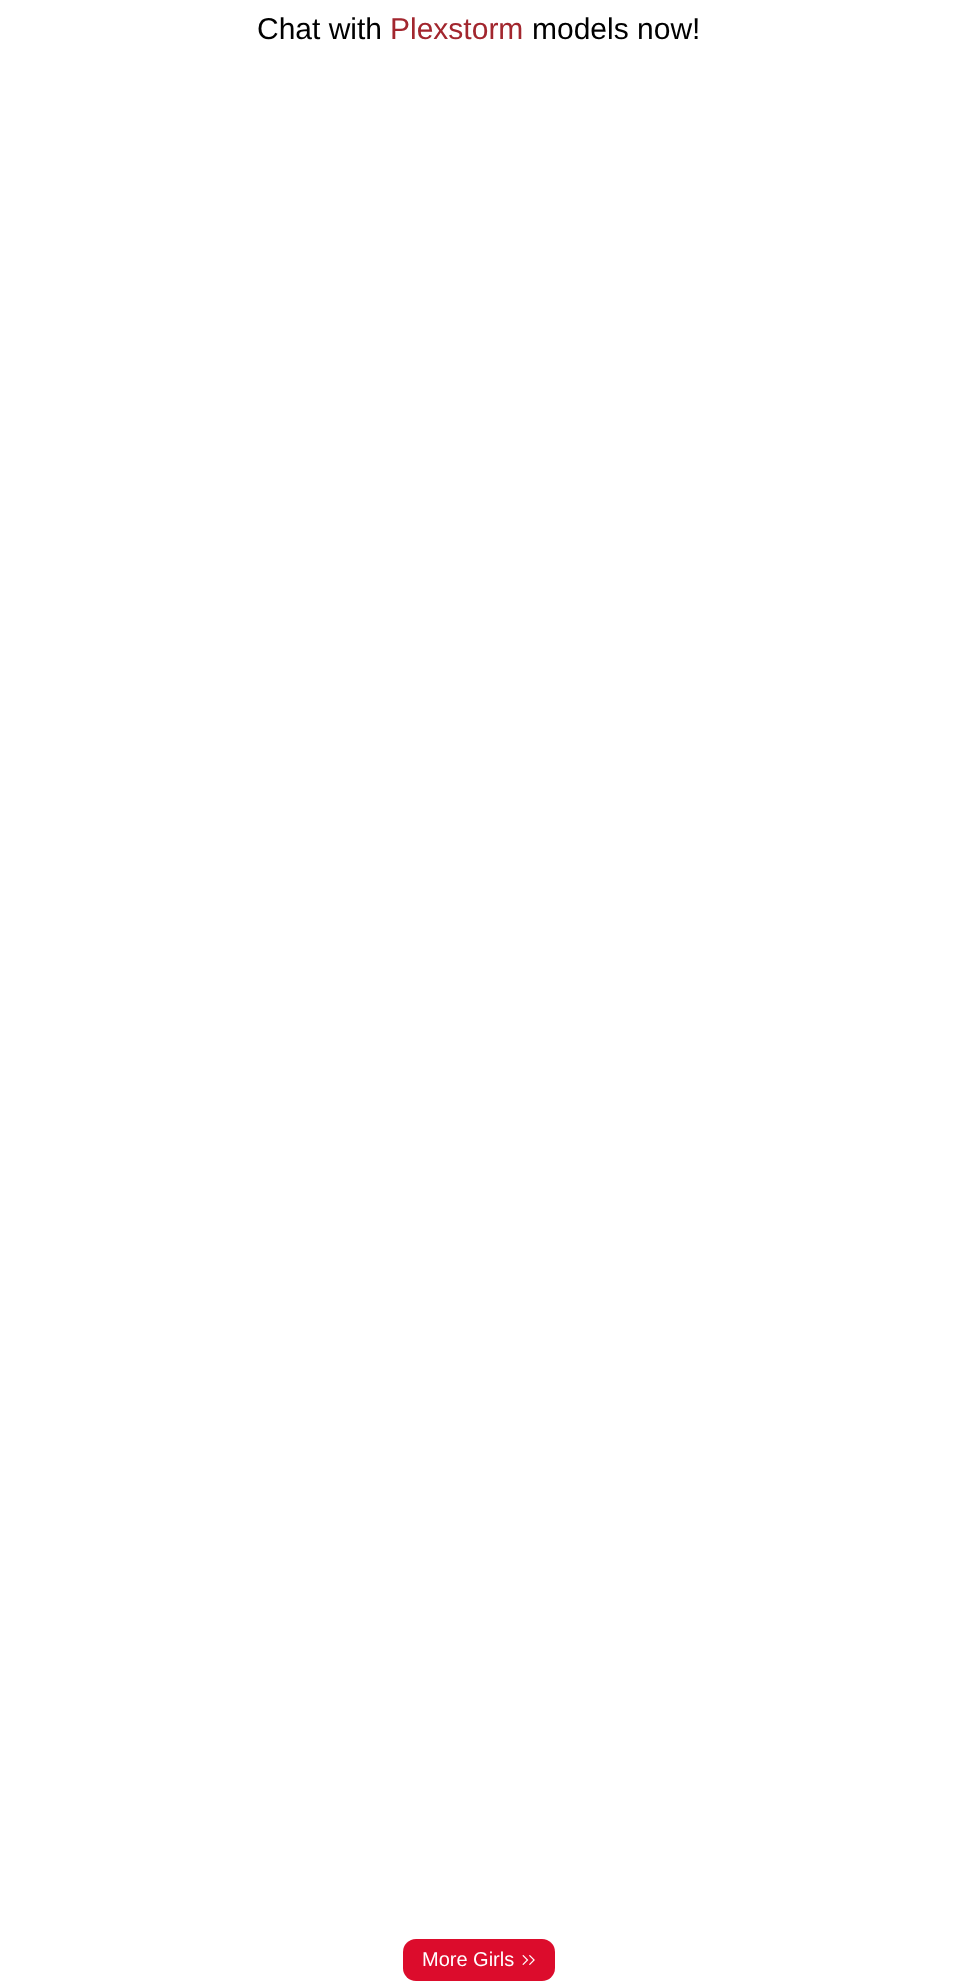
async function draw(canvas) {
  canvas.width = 957;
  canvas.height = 1986;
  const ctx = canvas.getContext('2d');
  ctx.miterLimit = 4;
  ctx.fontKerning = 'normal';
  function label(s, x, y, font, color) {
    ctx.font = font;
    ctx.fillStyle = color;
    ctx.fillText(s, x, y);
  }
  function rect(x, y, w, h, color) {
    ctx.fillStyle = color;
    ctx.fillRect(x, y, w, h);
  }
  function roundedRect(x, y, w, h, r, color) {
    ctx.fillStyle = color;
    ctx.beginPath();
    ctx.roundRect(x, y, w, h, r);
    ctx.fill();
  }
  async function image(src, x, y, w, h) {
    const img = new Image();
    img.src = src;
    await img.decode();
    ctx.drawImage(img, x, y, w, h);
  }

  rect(0, 0, 957, 1986, '#fff');
  label('Chat with', 257, 39, '30px Liberation Sans', '#000');
  label('Plexstorm', 390, 39, '30px Liberation Sans', '#a2262e');
  label('models now!', 532, 39, '30px Liberation Sans', '#000');
  roundedRect(403, 1939, 152, 42, 13, '#dc0c2c');
  label('More Girls', 422, 1966, '20px Liberation Sans', '#fff');
  await image('assets/img1.png', 522, 1955, 13, 10);
}

draw(document.querySelector('canvas'));
